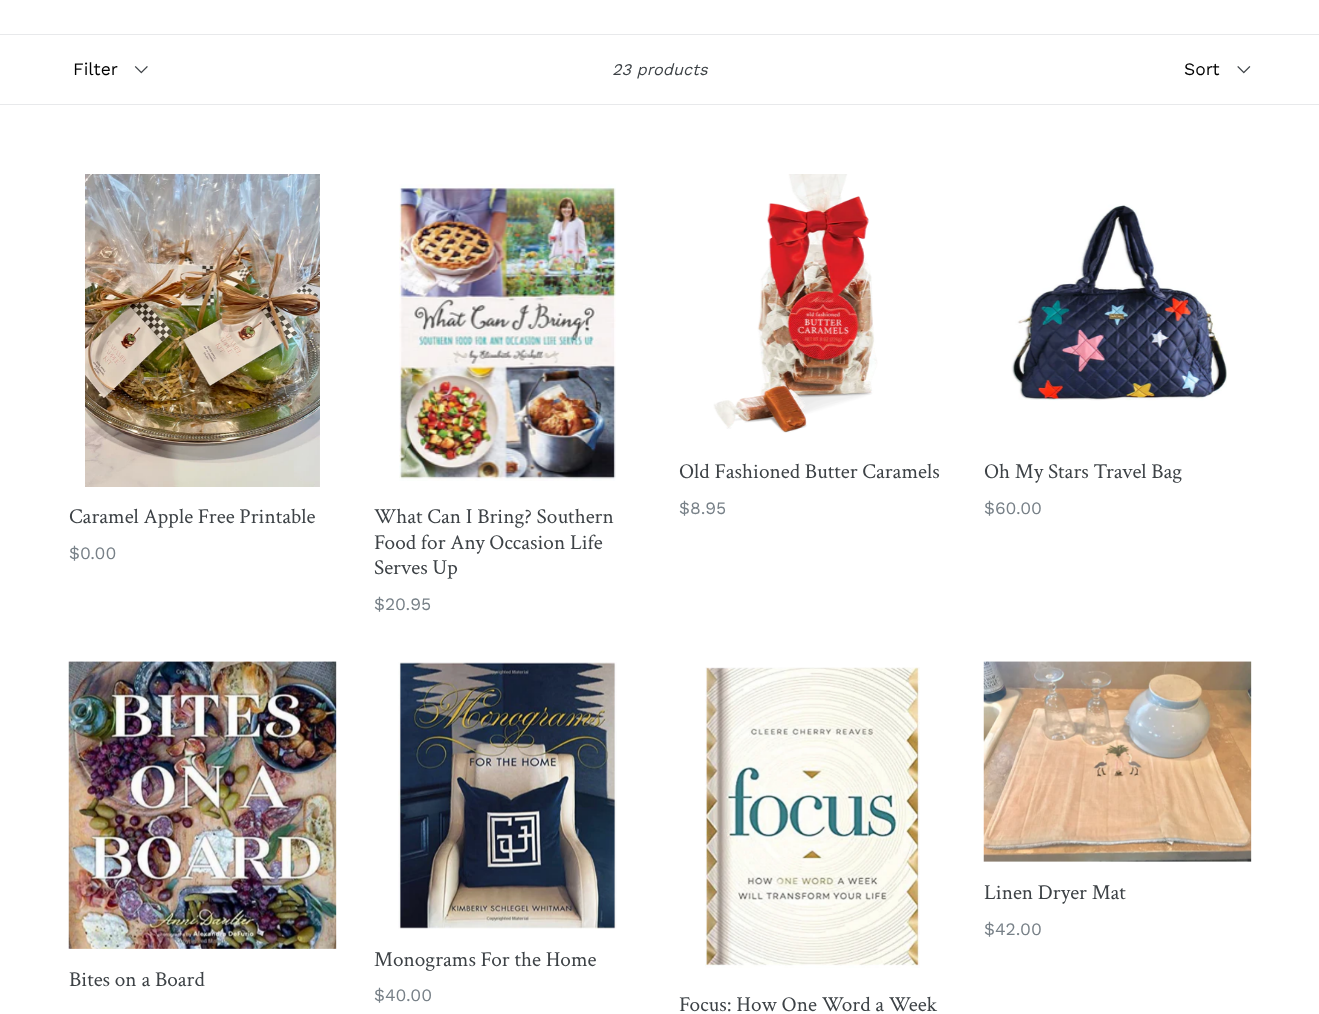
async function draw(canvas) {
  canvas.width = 1319;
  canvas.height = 1014;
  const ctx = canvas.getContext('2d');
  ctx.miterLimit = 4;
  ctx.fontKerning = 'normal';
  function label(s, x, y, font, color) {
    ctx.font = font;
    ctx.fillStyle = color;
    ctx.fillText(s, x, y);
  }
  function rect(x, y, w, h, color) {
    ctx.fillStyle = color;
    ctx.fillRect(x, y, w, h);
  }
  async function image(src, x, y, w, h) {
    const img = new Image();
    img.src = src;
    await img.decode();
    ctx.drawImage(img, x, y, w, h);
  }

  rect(0, 0, 1319, 1014, '#fff');
  rect(0, 34, 1319, 1, '#e8e9eb');
  rect(0, 104, 1319, 1, '#e8e9eb');
  await image('assets/img1.png', 134, 66, 14, 8);
  label('Filter', 73, 75, '17.5px Work Sans', '#000');
  label('23 products', 612, 75, 'italic 16.25px Work Sans', '#3d4246');
  await image('assets/img2.png', 1237, 66, 14, 8);
  label('Sort', 1184, 75, '17.5px Work Sans', '#000');
  await image('assets/img3.png', 713, 174, 165, 259);
  label('Old Fashioned Butter Caramels', 679, 478, '21.25px Crimson Text', '#3d4246');
  label('$8.95', 679, 514, '17.5px Work Sans', '#788188');
  await image('assets/img4.png', 1011, 204, 216, 197);
  label('Oh My Stars Travel Bag', 984, 478, '21.25px Crimson Text', '#3d4246');
  label('$60.00', 984, 514, '17.5px Work Sans', '#788188');
  await image('assets/img5.png', 85, 174, 235, 313);
  label('Caramel Apple Free Printable', 69, 523, '21.25px Crimson Text', '#3d4246');
  label('$0.00', 69, 559, '17.5px Work Sans', '#788188');
  await image('assets/img6.png', 399, 184, 217, 297);
  label('What Can I Bring? Southern', 374, 523, '21.25px Crimson Text', '#3d4246');
  label('Food for Any Occasion Life', 374, 549, '21.25px Crimson Text', '#3d4246');
  label('Serves Up', 374, 574, '21.25px Crimson Text', '#3d4246');
  label('$20.95', 374, 610, '17.5px Work Sans', '#788188');
  await image('assets/img7.png', 983, 661, 269, 201);
  label('Linen Dryer Mat', 984, 899, '21.25px Crimson Text', '#3d4246');
  label('$42.00', 984, 935, '17.5px Work Sans', '#788188');
  await image('assets/img8.png', 68, 661, 269, 288);
  label('Bites on a Board', 69, 986, '21.25px Crimson Text', '#3d4246');
  await image('assets/img9.png', 398, 662, 219, 267);
  label('Monograms For the Home', 374, 966, '21.25px Crimson Text', '#3d4246');
  label('$40.00', 374, 1001, '17.5px Work Sans', '#788188');
  await image('assets/img10.png', 705, 667, 215, 301);
  label('Focus: How One Word a Week', 679, 1011, '21.25px Crimson Text', '#3d4246');
}

draw(document.querySelector('canvas'));
